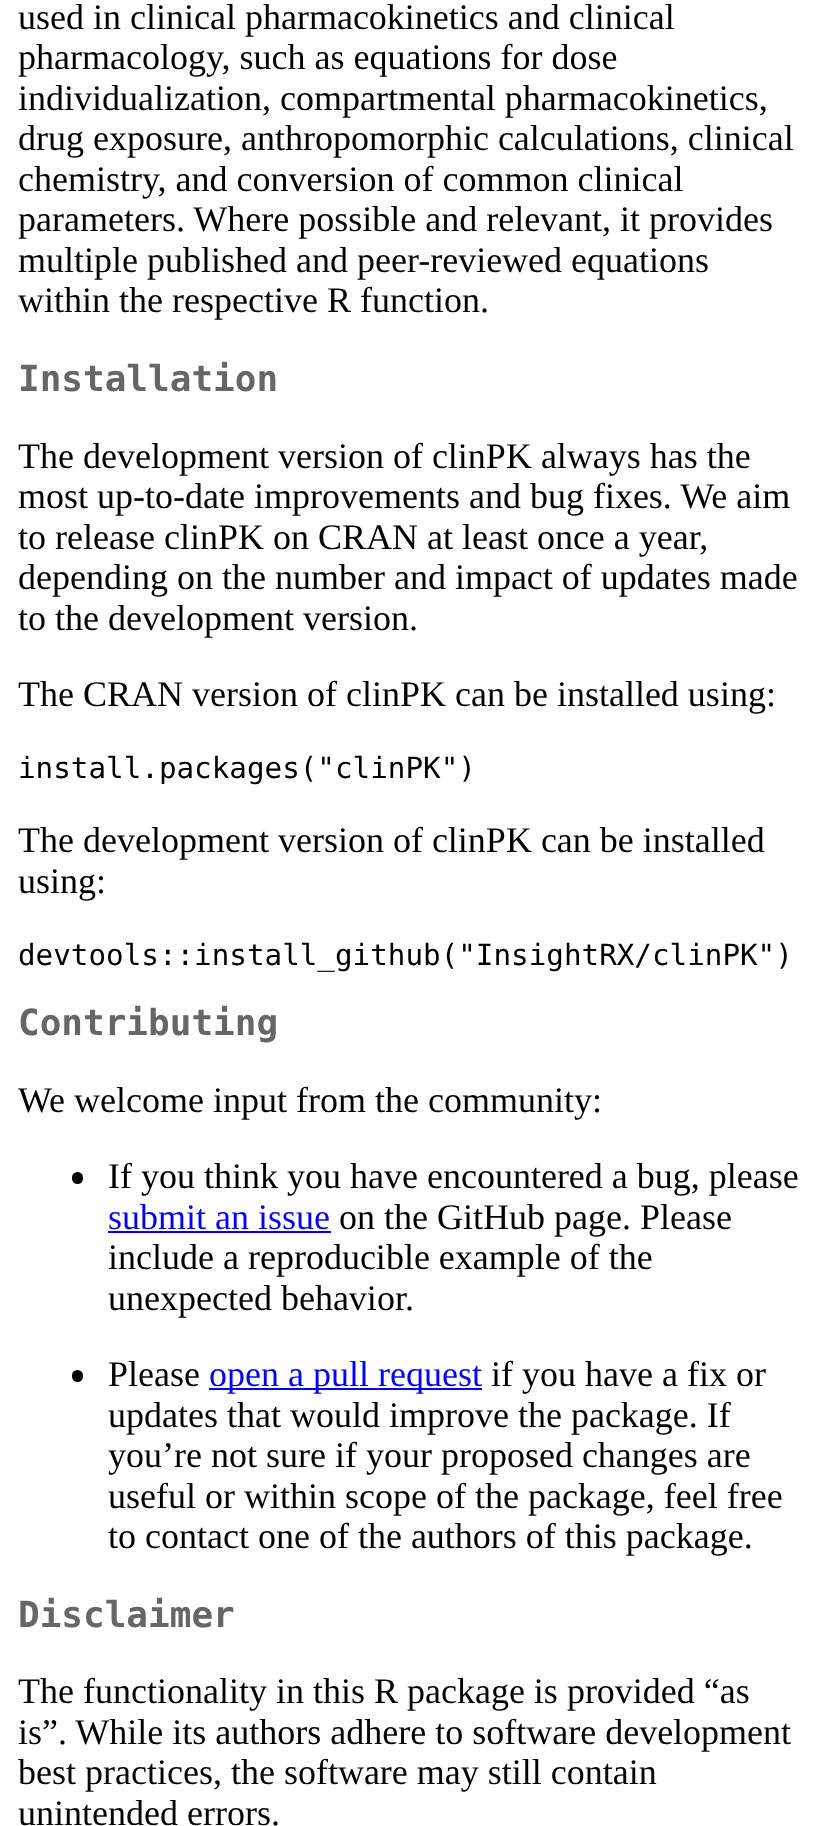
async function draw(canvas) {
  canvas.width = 816;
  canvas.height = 1826;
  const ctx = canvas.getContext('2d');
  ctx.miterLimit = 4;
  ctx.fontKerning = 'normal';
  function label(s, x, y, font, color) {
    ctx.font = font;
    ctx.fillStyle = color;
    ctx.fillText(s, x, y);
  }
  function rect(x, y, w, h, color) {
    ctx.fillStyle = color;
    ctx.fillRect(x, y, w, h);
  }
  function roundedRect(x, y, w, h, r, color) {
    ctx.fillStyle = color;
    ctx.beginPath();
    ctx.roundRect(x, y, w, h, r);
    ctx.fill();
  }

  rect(0, 0, 816, 1826, '#fff');
  label('used in clinical pharmacokinetics and clinical', 18, 29, '36px Liberation Serif', '#000');
  label('pharmacology, such as equations for dose', 18, 69, '36px Liberation Serif', '#000');
  label('individualization, compartmental pharmacokinetics,', 18, 110, '36px Liberation Serif', '#000');
  label('drug exposure, anthropomorphic calculations, clinical', 18, 150, '36px Liberation Serif', '#000');
  label('chemistry, and conversion of common clinical', 18, 191, '36px Liberation Serif', '#000');
  label('parameters. Where possible and relevant, it provides', 18, 231, '36px Liberation Serif', '#000');
  label('multiple published and peer-reviewed equations', 18, 272, '36px Liberation Serif', '#000');
  label('within the respective R function.', 18, 312, '36px Liberation Serif', '#000');
  label('Installation', 18, 391, 'bold 36px DejaVu Sans Mono', '#666');
  label('The development version of clinPK always has the', 18, 468, '36px Liberation Serif', '#000');
  label('most up-to-date improvements and bug fixes. We aim', 18, 508, '36px Liberation Serif', '#000');
  label('to release clinPK on CRAN at least once a year,', 18, 549, '36px Liberation Serif', '#000');
  label('depending on the number and impact of updates made', 18, 589, '36px Liberation Serif', '#000');
  label('to the development version.', 18, 630, '36px Liberation Serif', '#000');
  label('The CRAN version of clinPK can be installed using:', 18, 706, '36px Liberation Serif', '#000');
  label('install.packages("clinPK")', 18, 778, '29.25px DejaVu Sans Mono', '#000');
  label('The development version of clinPK can be installed', 18, 852, '36px Liberation Serif', '#000');
  label('using:', 18, 893, '36px Liberation Serif', '#000');
  label('devtools::install_github("InsightRX/clinPK")', 18, 965, '29.25px DejaVu Sans Mono', '#000');
  label('Contributing', 18, 1035, 'bold 36px DejaVu Sans Mono', '#666');
  label('We welcome input from the community:', 18, 1112, '36px Liberation Serif', '#000');
  roundedRect(72, 1172, 11, 12, 5.5, '#000');
  label('If you think you have encountered a bug, please', 108, 1188, '36px Liberation Serif', '#000');
  label('submit an issue', 108, 1229, '36px Liberation Serif', '#00f');
  rect(108, 1231, 223, 2, '#00f');
  label('on the GitHub page. Please', 339, 1229, '36px Liberation Serif', '#000');
  label('include a reproducible example of the', 108, 1269, '36px Liberation Serif', '#000');
  label('unexpected behavior.', 108, 1310, '36px Liberation Serif', '#000');
  roundedRect(72, 1370, 11, 12, 5.5, '#000');
  label('Please', 108, 1386, '36px Liberation Serif', '#000');
  rect(209, 1388, 273, 2, '#00f');
  label('open a pull request', 209, 1386, '36px Liberation Serif', '#00f');
  label('if you have a fix or', 491, 1386, '36px Liberation Serif', '#000');
  label('updates that would improve the package. If', 108, 1427, '36px Liberation Serif', '#000');
  label('you’re not sure if your proposed changes are', 108, 1467, '36px Liberation Serif', '#000');
  label('useful or within scope of the package, feel free', 108, 1508, '36px Liberation Serif', '#000');
  label('to contact one of the authors of this package.', 108, 1548, '36px Liberation Serif', '#000');
  label('Disclaimer', 18, 1627, 'bold 36px DejaVu Sans Mono', '#666');
  label('The functionality in this R package is provided “as', 18, 1703, '36px Liberation Serif', '#000');
  label('is”. While its authors adhere to software development', 18, 1744, '36px Liberation Serif', '#000');
  label('best practices, the software may still contain', 18, 1784, '36px Liberation Serif', '#000');
  label('unintended errors.', 18, 1825, '36px Liberation Serif', '#000');
}

draw(document.querySelector('canvas'));
